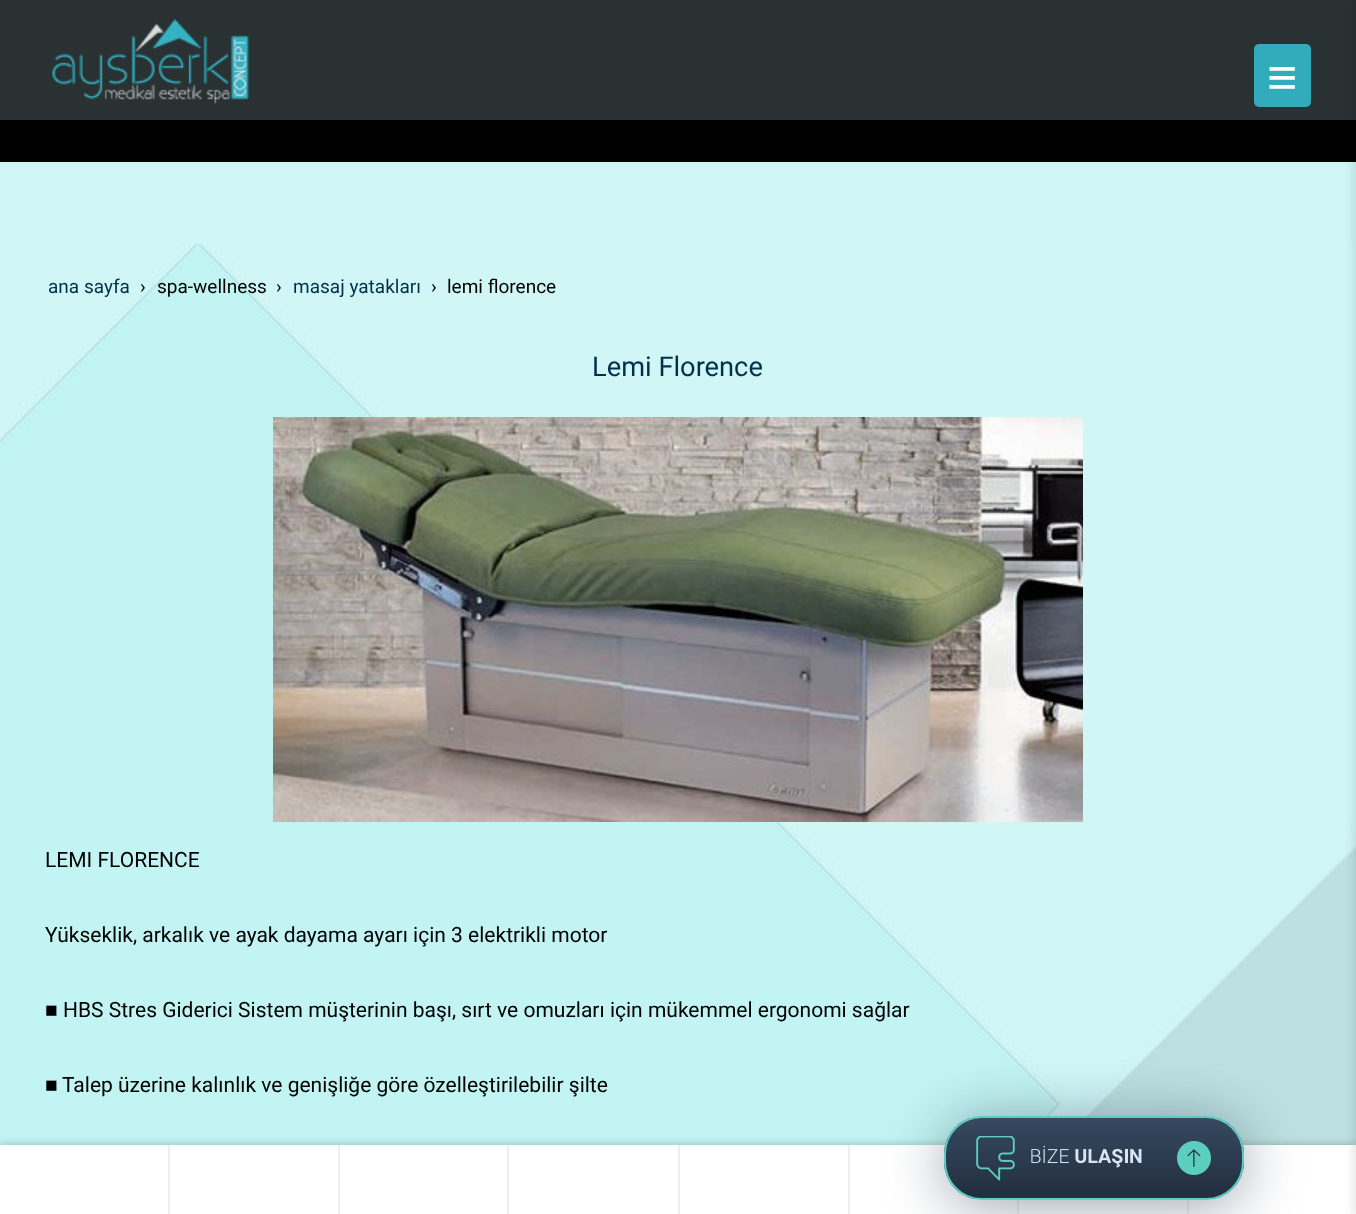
async function draw(canvas) {
  canvas.width = 1356;
  canvas.height = 1214;
  const ctx = canvas.getContext('2d');
  ctx.miterLimit = 4;
  ctx.fontKerning = 'normal';
  function label(s, x, y, font, color) {
    ctx.font = font;
    ctx.fillStyle = color;
    ctx.fillText(s, x, y);
  }
  function rect(x, y, w, h, color) {
    ctx.fillStyle = color;
    ctx.fillRect(x, y, w, h);
  }
  function roundedRect(x, y, w, h, r, color) {
    ctx.fillStyle = color;
    ctx.beginPath();
    ctx.roundRect(x, y, w, h, r);
    ctx.fill();
  }
  async function image(src, x, y, w, h) {
    const img = new Image();
    img.src = src;
    await img.decode();
    ctx.drawImage(img, x, y, w, h);
  }
  let gradient;

  rect(0, 0, 1356, 1214, '#000');
  rect(0, 0, 1356, 120, '#293133');
  await image('assets/img1.png', 52, 19, 197, 85);
  roundedRect(1254, 44, 57, 63, 5, '#32abba');
  label('≡', 1267, 95, '52px Liberation Sans', '#fff');
  rect(0, 162, 1356, 83, '#d0f6f6');
  await image('assets/img2.png', 0, 244, 1356, 901);
  label('ana sayfa', 48, 293, '19px Roboto', '#02314c');
  label('›', 140, 293, '19px Roboto', '#000');
  label('spa-wellness', 157, 293, '19px Roboto', '#000');
  label('›', 276, 293, '19px Roboto', '#000');
  label('masaj yatakları', 293, 293, '19px Roboto', '#02314c');
  label('›', 431, 293, '19px Roboto', '#000');
  label('lemi florence', 447, 293, '19px Roboto', '#000');
  label('Lemi Florence', 592, 376, '27.25px Roboto', '#02314c');
  await image('assets/img3.png', 273, 417, 810, 405);
  label('LEMI FLORENCE', 45, 867, '21px Roboto', '#000');
  label('Yükseklik, arkalık ve ayak dayama ayarı için 3 elektrikli motor', 45, 942, '21px Roboto', '#000');
  label('■', 45, 1017, '21px Liberation Sans', '#000');
  label('HBS Stres Giderici Sistem müşterinin başı, sırt ve omuzları için mükemmel ergonomi sağlar', 63, 1017, '21px Roboto', '#000');
  label('■', 45, 1092, '21px Liberation Sans', '#000');
  label('Talep üzerine kalınlık ve genişliğe göre özelleştirilebilir şilte', 62, 1092, '21px Roboto', '#000');
  ctx.fillStyle = '#00000040';
  ctx.filter = 'blur(4px)';
  ctx.beginPath();
  ctx.rect(0, 1145, 1356, 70);
  ctx.fill();
  ctx.filter = 'none';
  rect(0, 1145, 1356, 69, '#fff');
  rect(168, 1145, 2, 69, '#eee');
  rect(338, 1145, 2, 69, '#eee');
  rect(507, 1145, 2, 69, '#eee');
  rect(678, 1145, 2, 69, '#eee');
  rect(848, 1145, 2, 69, '#eee');
  rect(1017, 1200, 2, 14, '#eee');
  rect(1187, 1200, 2, 14, '#eee');
  ctx.fillStyle = '#0000001a';
  ctx.filter = 'blur(4px)';
  ctx.beginPath();
  ctx.rect(1353, 0, 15, 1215);
  ctx.fill();
  ctx.filter = 'none';
  ctx.fillStyle = '#36485f80';
  ctx.filter = 'blur(30px)';
  ctx.beginPath();
  ctx.roundRect(944, 1121, 300, 84, 38);
  ctx.fill();
  ctx.filter = 'none';
  ctx.save();
  ctx.beginPath();
  ctx.roundRect(944, 1116, 300, 84, 38);
  ctx.clip();
  gradient = ctx.createLinearGradient(1094, 1118, 1094, 1199);
  gradient.addColorStop(0, '#374960');
  gradient.addColorStop(1, '#212d3f');
  ctx.fillStyle = gradient;
  ctx.fillRect(944, 1118, 300, 81);
  ctx.restore();
  ctx.beginPath();
  ctx.roundRect(945, 1117, 298, 82, 37);
  ctx.strokeStyle = '#5ccebf';
  ctx.lineWidth = 2;
  ctx.stroke();
  await image('assets/img4.png', 976, 1136, 235, 45);
}

draw(document.querySelector('canvas'));
